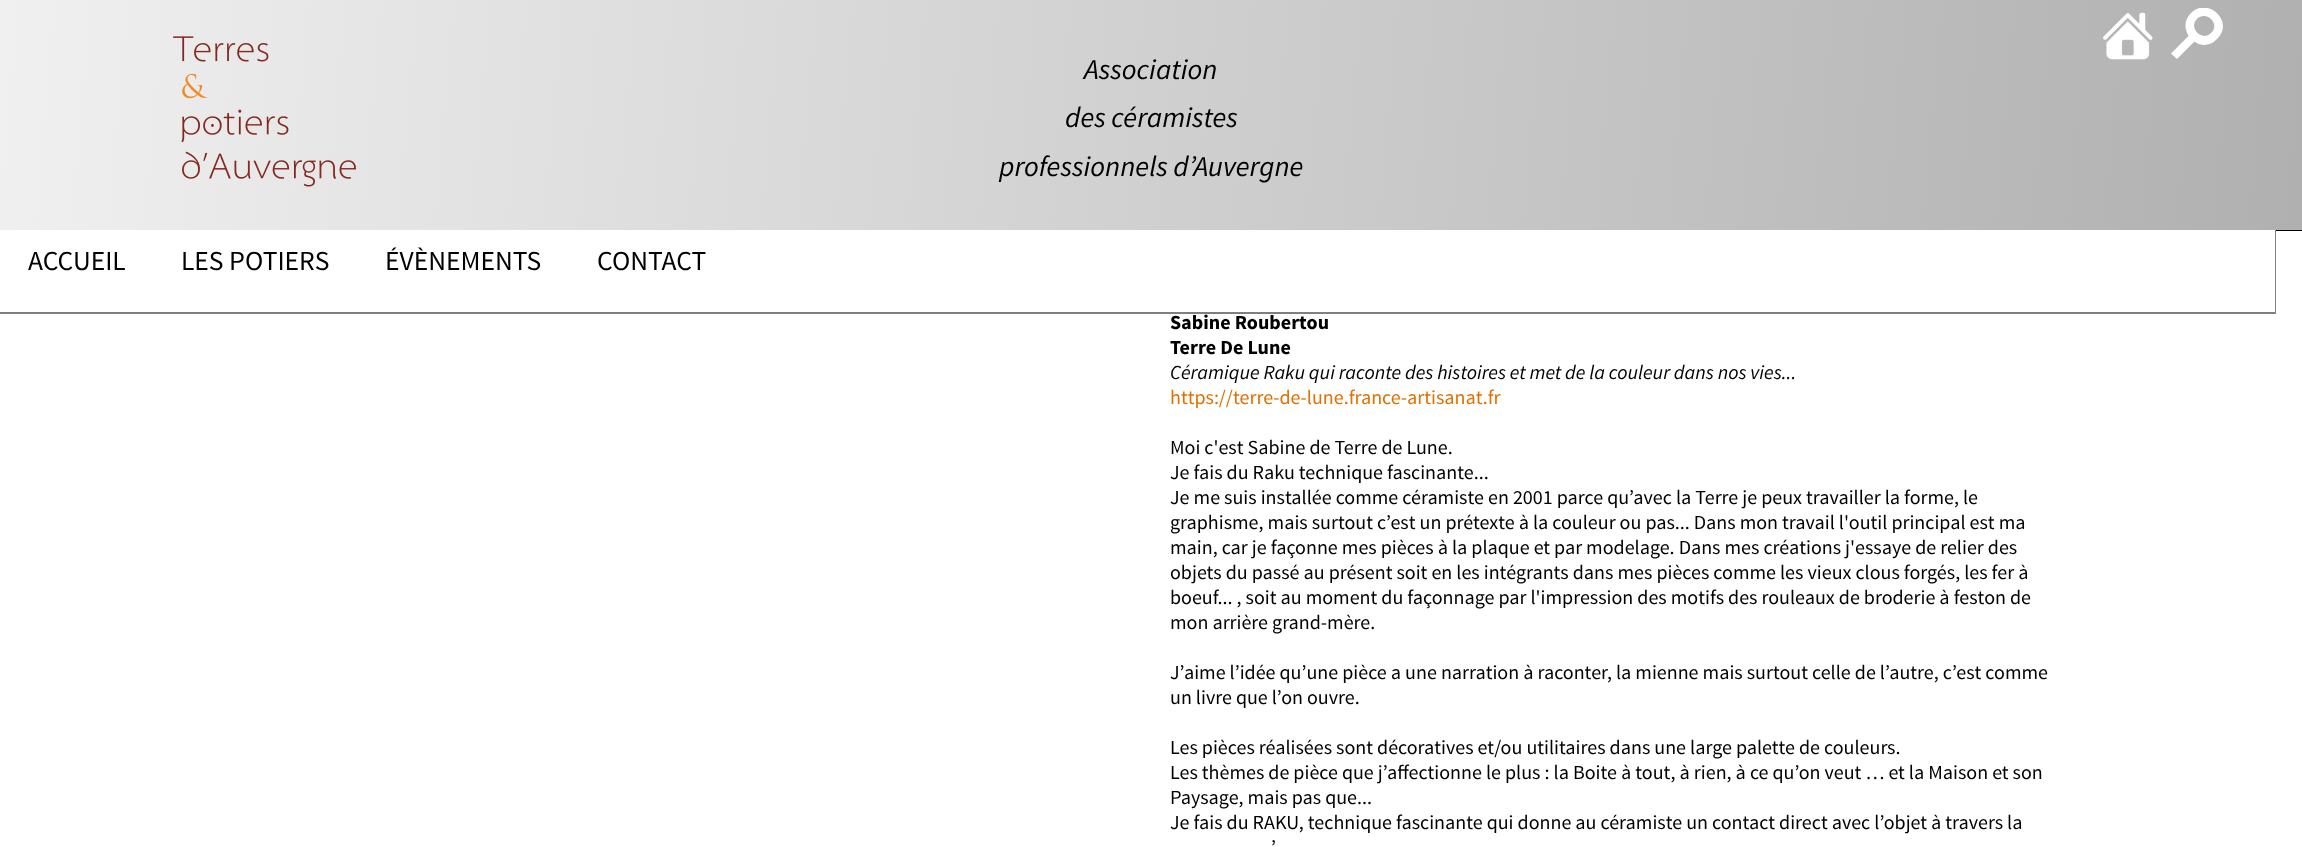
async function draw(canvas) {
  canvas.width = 2302;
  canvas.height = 847;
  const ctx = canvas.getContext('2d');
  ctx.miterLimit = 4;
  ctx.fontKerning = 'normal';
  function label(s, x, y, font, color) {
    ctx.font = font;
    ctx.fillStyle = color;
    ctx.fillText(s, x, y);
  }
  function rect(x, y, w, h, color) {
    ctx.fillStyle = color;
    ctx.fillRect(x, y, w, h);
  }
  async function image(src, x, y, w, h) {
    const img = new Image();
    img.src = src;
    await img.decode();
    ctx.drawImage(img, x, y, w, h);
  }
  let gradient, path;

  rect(0, 0, 2302, 847, '#fff');
  rect(2276, 230, 26, 1, '#000');
  gradient = ctx.createLinearGradient(-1.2, 14, 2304, 216);
  gradient.addColorStop(0, '#f0f0f0');
  gradient.addColorStop(1, '#b0b0b0');
  ctx.fillStyle = gradient;
  ctx.fillRect(0, 0, 2302, 230);
  await image('assets/img1.png', 173, 36, 183, 151);
  label('Association', 1084, 79, 'italic 28.75px Source Sans Pro', '#000');
  label('des céramistes', 1065, 127, 'italic 28.75px Source Sans Pro', '#000');
  label('professionnels d’Auvergne', 999, 176, 'italic 28.75px Source Sans Pro', '#000');
  await image('assets/img2.png', 2103, 12, 50, 48);
  ctx.fillStyle = '#fff';
  path = new Path2D('M2197.5 38.5L2177 59L2171 53.5L2192 32.5L2197.5 38.5');
  ctx.fill(path);
  ctx.save();
  ctx.beginPath();
  ctx.rect(2171, 8, 52, 52);
  ctx.clip();
  path = new Path2D('M2191 13C2174 30 2200 57 2217 39C2235 22 2208-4 2191 13ZM2211 33C2202 42 2188 28 2197 19C2206 10 2221 24 2211 33Z');
  ctx.fill(path);
  ctx.restore();
  ctx.fillStyle = '#808080';
  path = new Path2D('M2276 230V314L2275 312V230Z');
  ctx.fill(path);
  ctx.fillStyle = '#00000080';
  path = new Path2D('M2276 314H0V312H2275Z');
  ctx.fill(path);
  label('ACCUEIL', 28, 270, '27.5px Source Sans Pro', '#000');
  label('LES POTIERS', 181, 270, '27.5px Source Sans Pro', '#000');
  label('ÉVÈNEMENTS', 385, 270, '27.5px Source Sans Pro', '#000');
  label('CONTACT', 597, 270, '27.5px Source Sans Pro', '#000');
  label('Sabine Roubertou', 1170, 329, 'bold 20px Source Sans Pro', '#000');
  label('Terre De Lune', 1170, 354, 'bold 20px Source Sans Pro', '#000');
  label('Céramique Raku qui raconte des histoires et met de la couleur dans nos vies...', 1170, 379, 'italic 20px Source Sans Pro', '#000');
  label('https://terre-de-lune.france-artisanat.fr', 1170, 404, '20px Source Sans Pro', '#e07000');
  label('Moi c\'est Sabine de Terre de Lune.', 1170, 454, '20px Source Sans Pro', '#000');
  label('Je fais du Raku technique fascinante...', 1170, 479, '20px Source Sans Pro', '#000');
  label('Je me suis installée comme céramiste en 2001 parce qu’avec la Terre je peux travailler la forme, le', 1170, 504, '20px Source Sans Pro', '#000');
  label('graphisme, mais surtout c’est un prétexte à la couleur ou pas... Dans mon travail l\'outil principal est ma', 1170, 529, '20px Source Sans Pro', '#000');
  label('main, car je façonne mes pièces à la plaque et par modelage. Dans mes créations j\'essaye de relier des', 1170, 554, '20px Source Sans Pro', '#000');
  label('objets du passé au présent soit en les intégrants dans mes pièces comme les vieux clous forgés, les fer à', 1170, 579, '20px Source Sans Pro', '#000');
  label('boeuf... , soit au moment du façonnage par l\'impression des motifs des rouleaux de broderie à feston de', 1170, 604, '20px Source Sans Pro', '#000');
  label('mon arrière grand-mère.', 1170, 629, '20px Source Sans Pro', '#000');
  label('J’aime l’idée qu’une pièce a une narration à raconter, la mienne mais surtout celle de l’autre, c’est comme', 1170, 679, '20px Source Sans Pro', '#000');
  label('un livre que l’on ouvre.', 1170, 704, '20px Source Sans Pro', '#000');
  label('Les pièces réalisées sont décoratives et/ou utilitaires dans une large palette de couleurs.', 1170, 754, '20px Source Sans Pro', '#000');
  label('Les thèmes de pièce que j’affectionne le plus : la Boite à tout, à rien, à ce qu’on veut … et la Maison et son', 1170, 779, '20px Source Sans Pro', '#000');
  label('Paysage, mais pas que...', 1170, 804, '20px Source Sans Pro', '#000');
  label('Je fais du RAKU, technique fascinante qui donne au céramiste un contact direct avec l’objet à travers la', 1170, 829, '20px Source Sans Pro', '#000');
  label('’', 1271, 854, '20px Source Sans Pro', '#000');
}

draw(document.querySelector('canvas'));
